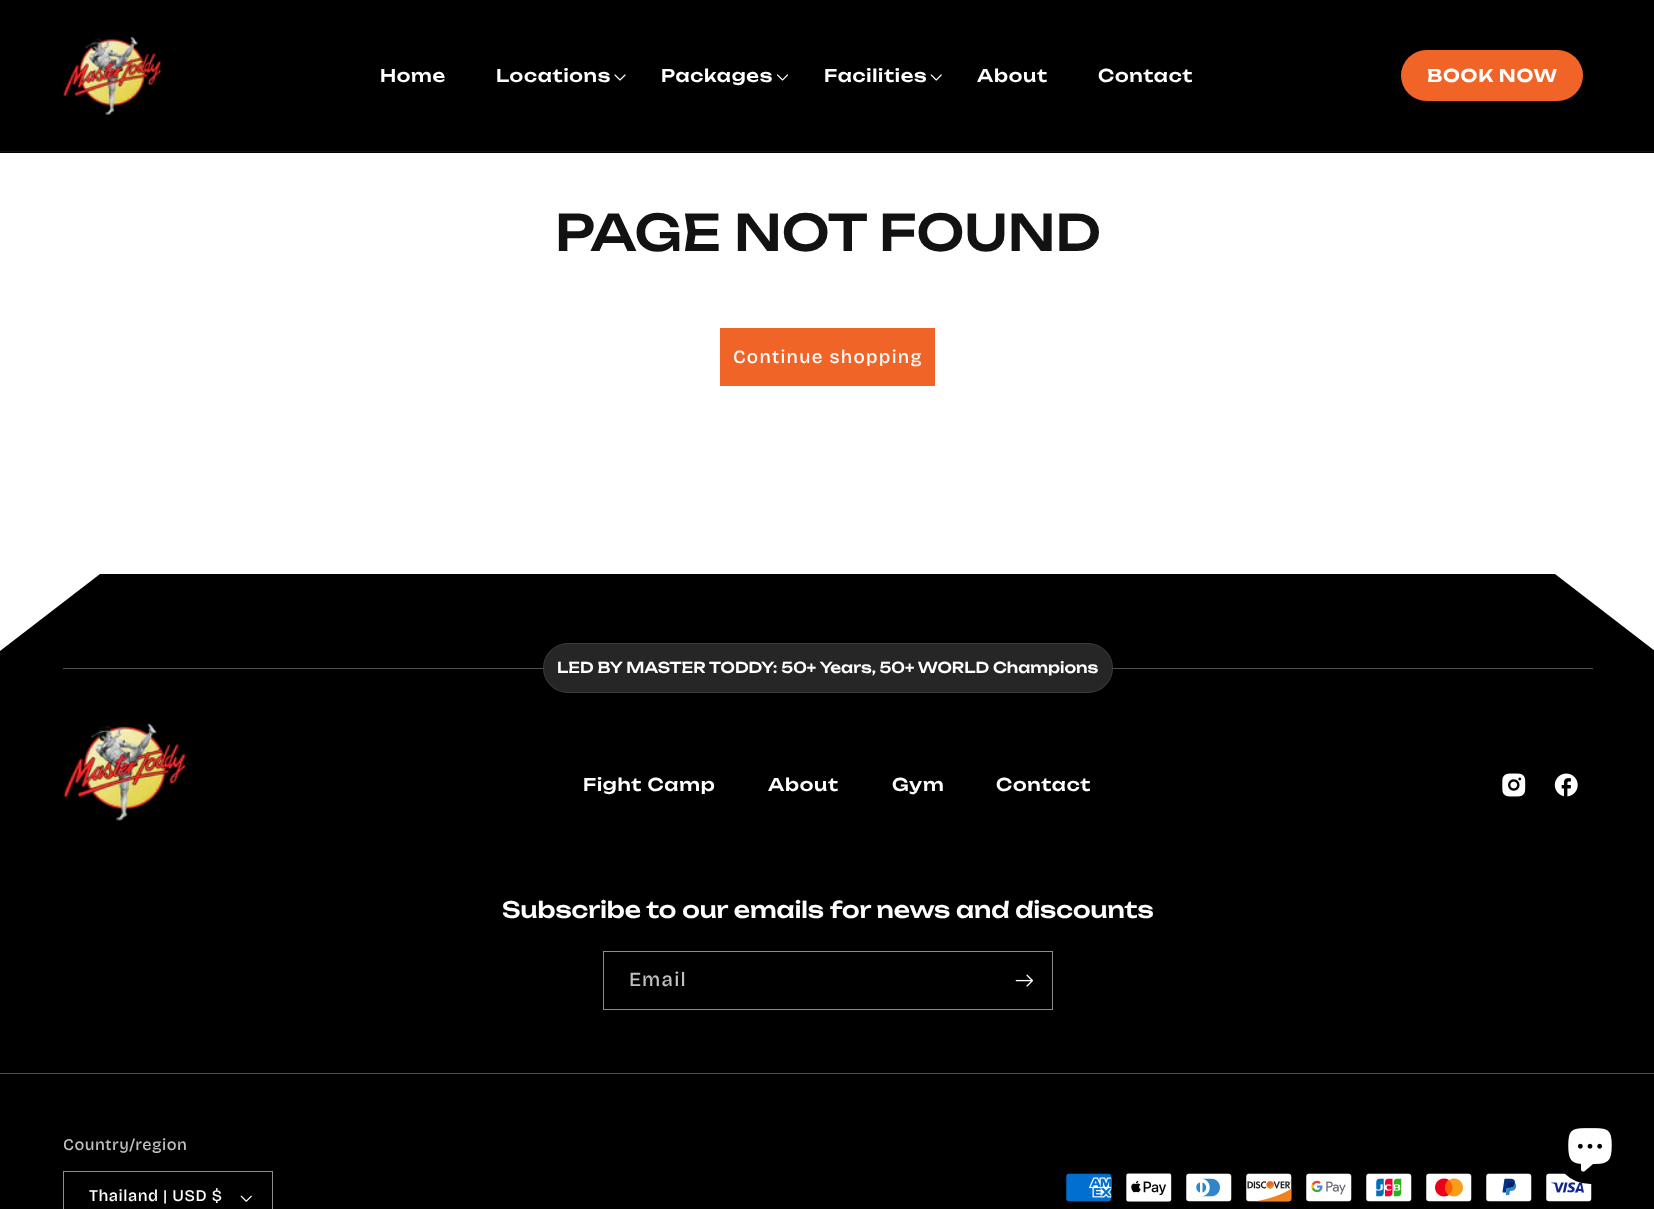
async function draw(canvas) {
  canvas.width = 1654;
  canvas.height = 1209;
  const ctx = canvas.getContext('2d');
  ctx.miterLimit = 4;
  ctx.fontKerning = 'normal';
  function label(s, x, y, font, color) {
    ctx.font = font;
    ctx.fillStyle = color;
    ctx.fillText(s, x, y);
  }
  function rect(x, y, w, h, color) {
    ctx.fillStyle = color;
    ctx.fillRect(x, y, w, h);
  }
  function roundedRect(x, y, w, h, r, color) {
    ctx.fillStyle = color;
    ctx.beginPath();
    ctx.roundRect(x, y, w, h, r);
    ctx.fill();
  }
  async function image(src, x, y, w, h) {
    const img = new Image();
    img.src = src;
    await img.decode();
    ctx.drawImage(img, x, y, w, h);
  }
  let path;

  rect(0, 0, 1654, 1209, '#fff');
  rect(0, 0, 1654, 153, '#000');
  rect(0, 151, 1654, 1, '#141414');
  await image('assets/img1.png', 63, 36, 99, 79);
  ctx.letterSpacing = '0.75px';
  label('Home', 380, 82, '500 17.5px Unbounded', '#fff');
  label('Locations', 496, 82, '500 17.5px Unbounded', '#fff');
  await image('assets/img2.png', 614, 74, 12, 7);
  label('Packages', 661, 82, '500 17.5px Unbounded', '#fff');
  await image('assets/img3.png', 777, 74, 11, 7);
  label('Facilities', 824, 82, '500 17.5px Unbounded', '#fff');
  await image('assets/img4.png', 930, 74, 12, 7);
  label('About', 977, 82, '500 17.5px Unbounded', '#fff');
  label('Contact', 1098, 82, '500 17.5px Unbounded', '#fff');
  roundedRect(1401, 50, 182, 51, 25.5, '#f06428');
  label('BOOK NOW', 1427, 82, '600 17.5px Unbounded', '#fff');
  ctx.letterSpacing = '0px';
  label('PAGE NOT FOUND', 555, 251, '500 50px Unbounded', '#121212');
  rect(720, 328, 215, 58, '#f06428');
  ctx.letterSpacing = '1.25px';
  label('Continue shopping', 733, 363, '500 18.75px Bricolage Grotesque', '#fff');
  rect(0, 574, 1654, 635, '#000');
  ctx.fillStyle = '#fff';
  path = new Path2D('M0 651L100 574H0Z');
  ctx.fill(path);
  path = new Path2D('M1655 651L1555 574H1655Z');
  ctx.fill(path);
  rect(63, 668, 1530, 1, '#4d4d4d');
  roundedRect(543, 643, 570, 50, 25, '#262626');
  ctx.beginPath();
  ctx.roundRect(543.5, 643.5, 569, 49, 24.5);
  ctx.strokeStyle = '#ffffff1a';
  ctx.stroke();
  ctx.letterSpacing = '0px';
  label('LED BY MASTER TODDY: 50+ Years, 50+ WORLD Champions', 557, 673, '500 15px Unbounded', '#fff');
  await image('assets/img5.png', 63, 723, 124, 98);
  ctx.letterSpacing = '0.75px';
  label('Fight Camp', 583, 791, '500 17.5px Unbounded', '#fff');
  label('About', 768, 791, '500 17.5px Unbounded', '#fff');
  label('Gym', 892, 791, '500 17.5px Unbounded', '#fff');
  label('Contact', 996, 791, '500 17.5px Unbounded', '#fff');
  await image('assets/img6.png', 1502, 773, 24, 24);
  await image('assets/img7.png', 1554, 773, 24, 24);
  ctx.letterSpacing = '0px';
  label('Subscribe to our emails for news and discounts', 502, 918, '500 22.5px Unbounded', '#fff');
  ctx.strokeStyle = '#8c8c8c';
  ctx.strokeRect(603.5, 951.5, 449, 58);
  ctx.letterSpacing = '1.25px';
  label('Email', 629, 986, '500 20px Bricolage Grotesque', '#bfbfbf');
  await image('assets/img8.png', 1015, 974, 18, 13);
  rect(0, 1073, 1654, 1, '#4d4d4d');
  ctx.letterSpacing = '0.5px';
  label('Country/region', 63, 1150, '500 16.25px Bricolage Grotesque', '#bfbfbf');
  await image('assets/img9.png', 240, 1195, 12, 7);
  ctx.strokeRect(63.5, 1171.5, 209, 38);
  label('Thailand | USD $', 89, 1201, '500 16.25px Bricolage Grotesque', '#fff');
  await image('assets/img10.png', 1066, 1173, 46, 29);
  await image('assets/img11.png', 1126, 1173, 46, 29);
  await image('assets/img12.png', 1186, 1173, 46, 29);
  await image('assets/img13.png', 1246, 1173, 46, 29);
  await image('assets/img14.png', 1306, 1173, 46, 29);
  await image('assets/img15.png', 1366, 1173, 46, 29);
  await image('assets/img16.png', 1426, 1173, 46, 29);
  await image('assets/img17.png', 1486, 1173, 46, 29);
  await image('assets/img18.png', 1546, 1173, 46, 29);
  ctx.fillStyle = '#000';
  ctx.beginPath();
  ctx.arc(1590.5, 1146.5, 37.5, 0, 2 * Math.PI);
  ctx.fill();
  await image('assets/img19.png', 1568, 1128, 44, 44);
}

draw(document.querySelector('canvas'));
